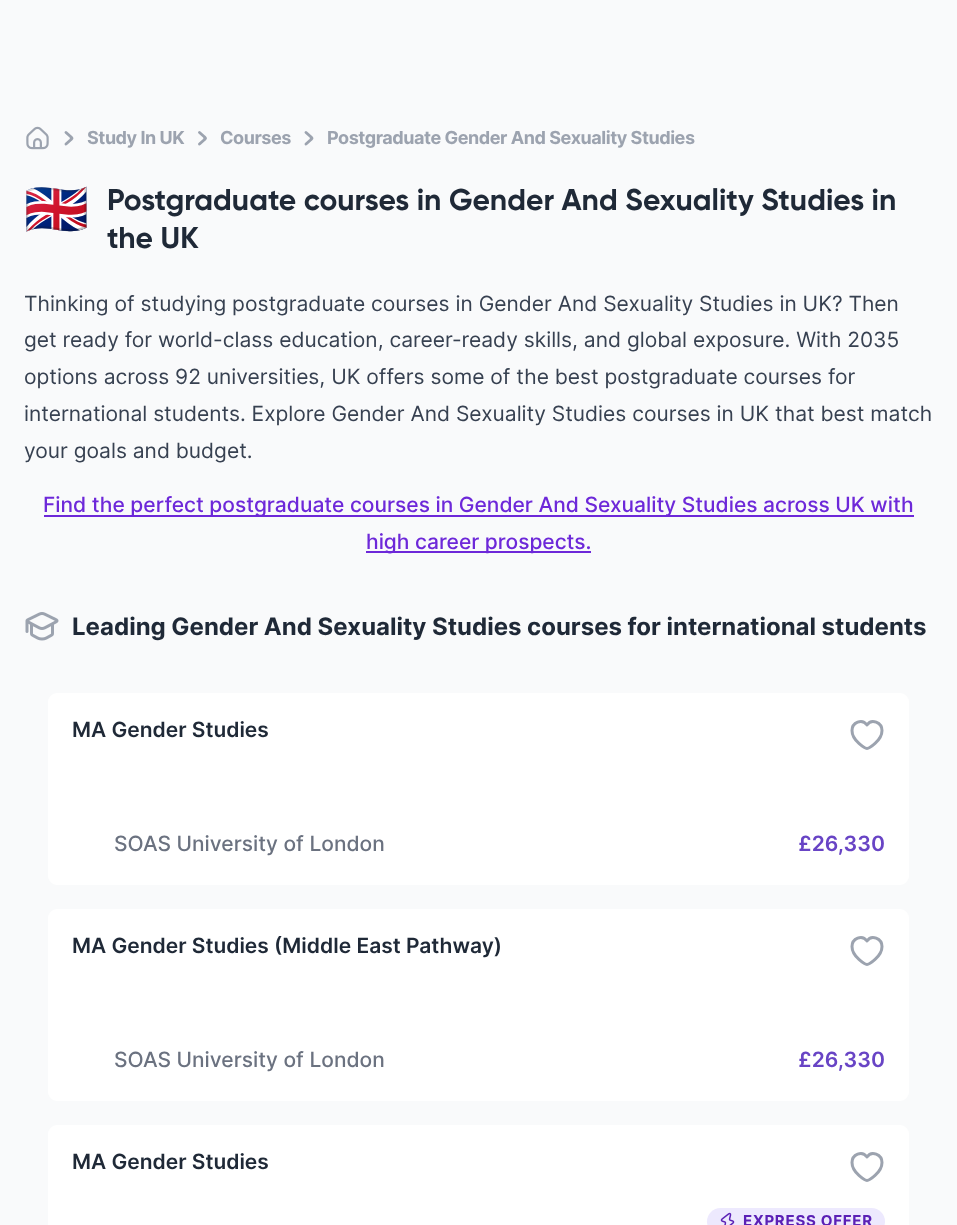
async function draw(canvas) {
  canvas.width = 957;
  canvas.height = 1225;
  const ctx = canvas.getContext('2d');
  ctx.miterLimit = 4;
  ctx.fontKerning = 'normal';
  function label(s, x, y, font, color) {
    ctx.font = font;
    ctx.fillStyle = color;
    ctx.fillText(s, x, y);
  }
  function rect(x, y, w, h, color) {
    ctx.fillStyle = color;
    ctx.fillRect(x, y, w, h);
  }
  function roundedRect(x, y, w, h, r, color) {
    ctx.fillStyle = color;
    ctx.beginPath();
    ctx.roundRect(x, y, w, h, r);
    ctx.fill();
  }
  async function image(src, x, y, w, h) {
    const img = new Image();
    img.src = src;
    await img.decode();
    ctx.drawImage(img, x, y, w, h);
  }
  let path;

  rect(0, 0, 957, 1225, '#f9fafb');
  await image('assets/img1.png', 26, 126, 23, 24);
  path = new Path2D('M66 132.5L70.5 136.5C72.5 138.5 72.5 138 70.5 140L66 144');
  ctx.strokeStyle = '#9ca3af';
  ctx.lineWidth = 2.9;
  ctx.lineCap = 'round';
  ctx.lineJoin = 'round';
  ctx.stroke(path);
  ctx.letterSpacing = '-0.45px';
  label('Study In UK', 87, 144, 'bold 18px Inter', '#9ca3af');
  path = new Path2D('M199.5 132.5L204 136.5C206 138.5 206 138 204 140L199.5 144');
  ctx.stroke(path);
  label('Courses', 220, 144, 'bold 18px Inter', '#9ca3af');
  path = new Path2D('M306 132.5L310.5 136.5C312.5 138.5 312.5 138 310.5 140L306 144');
  ctx.stroke(path);
  label('Postgraduate Gender And Sexuality Studies', 327, 144, 'bold 18px Inter', '#9ca3af');
  ctx.letterSpacing = '0px';
  label('🇬🇧', 24, 227, 'bold 52px Noto Color Emoji', '#1f2937');
  label('Postgraduate courses in Gender And Sexuality Studies in', 107, 210, 'bold 30px Gilroy', '#1f2937');
  label('the UK', 107, 248, 'bold 30px Gilroy', '#1f2937');
  label('Thinking of studying postgraduate courses in Gender And Sexuality Studies in UK? Then', 24, 311, '21px Inter', '#374151');
  label('get ready for world-class education, career-ready skills, and global exposure. With 2035', 24, 347, '21px Inter', '#374151');
  label('options across 92 universities, UK offers some of the best postgraduate courses for', 24, 384, '21px Inter', '#374151');
  label('international students. Explore Gender And Sexuality Studies courses in UK that best match', 24, 421, '21px Inter', '#374151');
  label('your goals and budget.', 24, 458, '21px Inter', '#374151');
  rect(44, 515, 870, 2, '#6d28d9');
  label('Find the perfect postgraduate courses in Gender And Sexuality Studies across UK with', 43, 512, '500 21px Inter', '#6d28d9');
  rect(366, 551, 225, 2, '#6d28d9');
  label('high career prospects.', 366, 549, '500 21px Inter', '#6d28d9');
  await image('assets/img2.png', 25, 612, 34, 29);
  label('Leading Gender And Sexuality Studies courses for international students', 72, 635, 'bold 24px Inter', '#1f2937');
  roundedRect(48, 693, 861, 192, 9, '#fff');
  label('MA Gender Studies', 72, 737, '600 21px Inter', '#1f2937');
  path = new Path2D('M867 748.5C868.5 748.5 882 741 882 730.5C882 722.5 871.5 718 867 725C862 718 852 722.5 852 730.5C852 741 865.5 748.5 867 748.5Z');
  ctx.lineWidth = 3;
  ctx.stroke(path);
  label('SOAS University of London', 114, 851, '500 21px Inter', '#6b7280');
  label('£26,330', 798, 851, '600 21px Inter', '#6844c5');
  roundedRect(48, 909, 861, 192, 9, '#fff');
  label('MA Gender Studies (Middle East Pathway)', 72, 953, '600 21px Inter', '#1f2937');
  path = new Path2D('M867 964.5C868.5 964.5 882 957 882 946.5C882 938.5 871.5 934 867 941C862 934 852 938.5 852 946.5C852 957 865.5 964.5 867 964.5Z');
  ctx.stroke(path);
  label('SOAS University of London', 114, 1067, '500 21px Inter', '#6b7280');
  label('£26,330', 798, 1067, '600 21px Inter', '#6844c5');
  roundedRect(48, 1125, 861, 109, 9, '#fff');
  label('MA Gender Studies', 72, 1169, '600 21px Inter', '#1f2937');
  path = new Path2D('M867 1180.5C868.5 1180.5 882 1173 882 1162.5C882 1154.5 871.5 1150 867 1157C862 1150 852 1154.5 852 1162.5C852 1173 865.5 1180.5 867 1180.5Z');
  ctx.stroke(path);
  roundedRect(707, 1208, 178, 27, 13.5, '#ede9fe');
  await image('assets/img3.png', 720, 1212, 15, 13);
  ctx.letterSpacing = '0.75px';
  label('EXPRESS OFFER', 743, 1226, 'bold 15px Inter', '#5b21b6');
}

draw(document.querySelector('canvas'));
